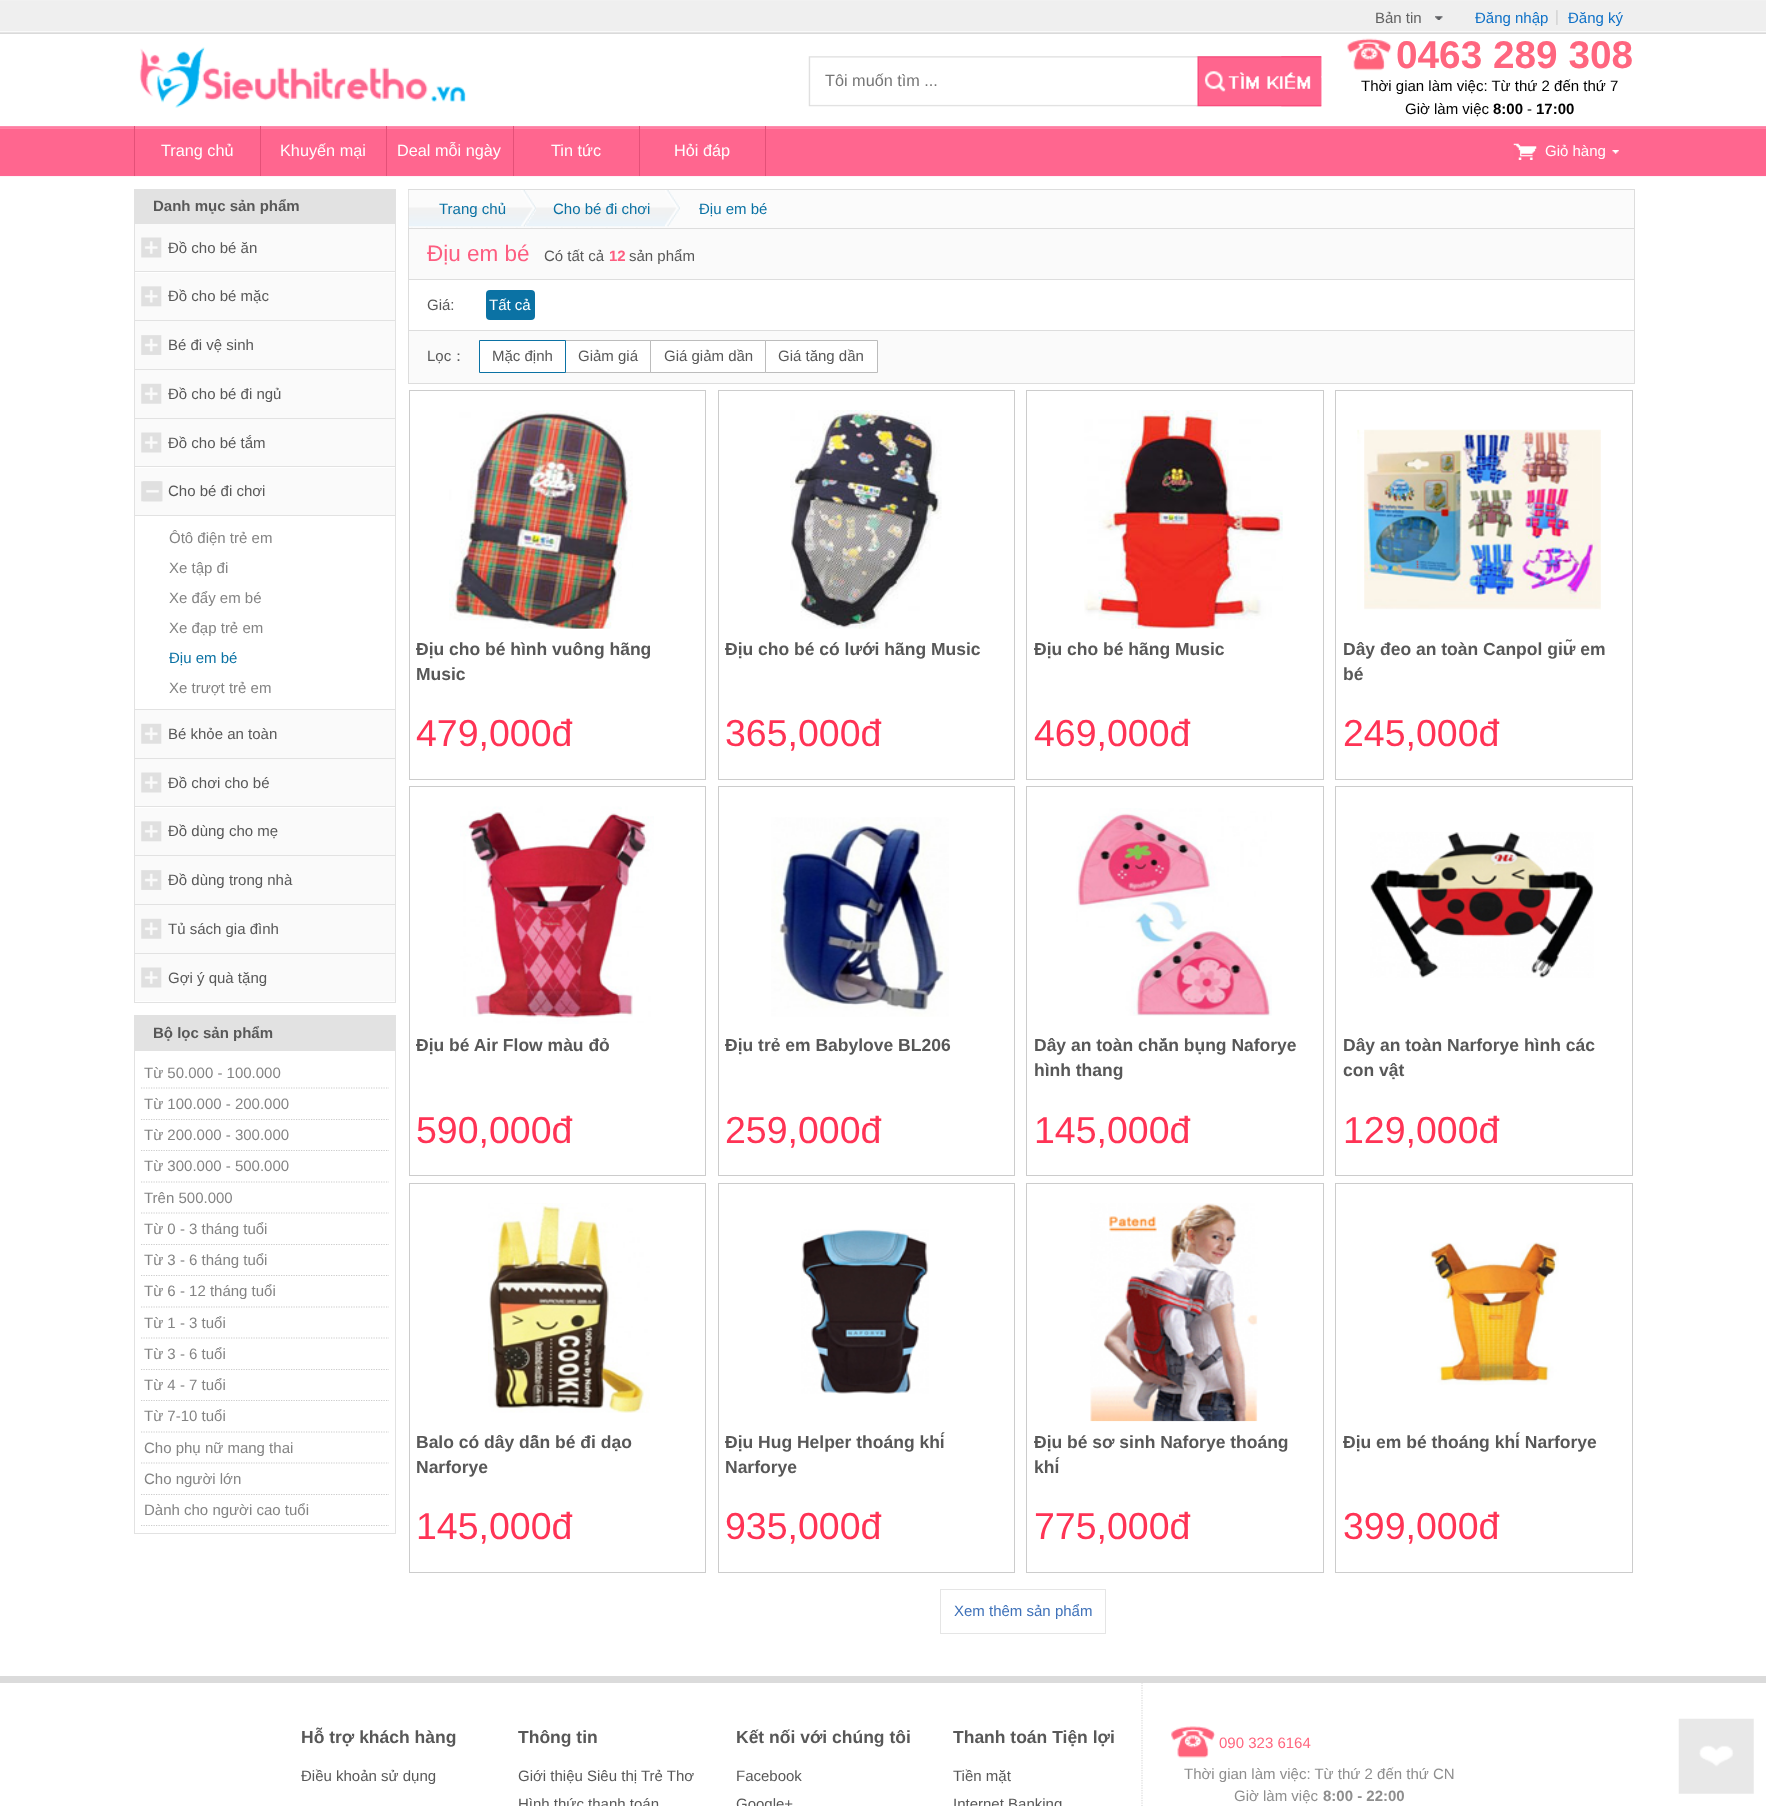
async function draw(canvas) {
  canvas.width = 1766;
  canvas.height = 1806;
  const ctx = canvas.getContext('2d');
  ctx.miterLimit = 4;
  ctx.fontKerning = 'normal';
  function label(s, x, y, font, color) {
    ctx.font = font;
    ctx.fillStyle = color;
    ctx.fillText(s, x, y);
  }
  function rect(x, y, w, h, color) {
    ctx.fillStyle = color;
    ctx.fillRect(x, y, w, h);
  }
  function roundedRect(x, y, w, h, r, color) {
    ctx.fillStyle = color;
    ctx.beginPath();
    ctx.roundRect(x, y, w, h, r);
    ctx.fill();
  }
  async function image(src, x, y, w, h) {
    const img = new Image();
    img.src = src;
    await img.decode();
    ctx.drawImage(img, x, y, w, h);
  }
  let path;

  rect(0, 0, 1766, 1806, '#fff');
  await image('assets/img1.png', 0, 0, 1766, 34);
  label('Bản tin', 1375, 23, '15px Liberation Sans', '#616161');
  await image('assets/img2.png', 1435, 16, 8, 4);
  await image('assets/img3.png', 1556, 10, 2, 15);
  label('Đăng nhập', 1475, 23, '15px Liberation Sans', '#0f71c7');
  label('Đăng ký', 1568, 23, '15px Liberation Sans', '#0f71c7');
  await image('assets/img4.png', 139, 47, 327, 61);
  await image('assets/img5.png', 808, 56, 514, 51);
  label('Tôi muốn tìm ...', 825, 86, '16.25px Liberation Sans', '#757575');
  await image('assets/img6.png', 1196, 56, 126, 51);
  await image('assets/img7.png', 1347, 38, 45, 33);
  label('0463 289 308', 1396, 68, 'bold 38.75px Liberation Sans', '#ff667f');
  label('Thời gian làm việc: Từ thứ 2 đến thứ 7', 1361, 91, '15px Liberation Sans', '#000');
  label('Giờ làm việc', 1405, 114, '15px Liberation Sans', '#000');
  label('8:00', 1493, 114, 'bold 15px Liberation Sans', '#000');
  label('-', 1527, 114, '15px Liberation Sans', '#000');
  label('17:00', 1536, 114, 'bold 15px Liberation Sans', '#000');
  await image('assets/img8.png', 0, 126, 1766, 51);
  rect(260, 126, 1, 50, '#e45078');
  rect(134, 126, 1, 50, '#e45078');
  label('Trang chủ', 161, 156, '16.25px Liberation Sans', '#fff');
  rect(386, 126, 1, 50, '#e45078');
  label('Khuyến mại', 280, 156, '16.25px Liberation Sans', '#fff');
  rect(513, 126, 1, 50, '#e45078');
  label('Deal mỗi ngày', 397, 156, '16.25px Liberation Sans', '#fff');
  rect(639, 126, 1, 50, '#e45078');
  label('Tin tức', 551, 156, '16.25px Liberation Sans', '#fff');
  rect(765, 126, 1, 50, '#e45078');
  label('Hỏi đáp', 674, 156, '16.25px Liberation Sans', '#fff');
  await image('assets/img9.png', 1513, 143, 24, 17);
  label('Giỏ hàng', 1545, 156, '15px Liberation Sans', '#fff');
  await image('assets/img10.png', 1612, 150, 7, 4);
  ctx.strokeStyle = '#e2e2e2';
  ctx.strokeRect(134.5, 189.5, 261, 813);
  rect(135, 190, 260, 34, '#e2e2e2');
  label('Danh mục sản phẩm', 153, 211, 'bold 15px Liberation Sans', '#585858');
  rect(135, 224, 260, 47, '#fafafa');
  await image('assets/img11.png', 141, 237, 21, 21);
  label('Đồ cho bé ăn', 168, 253, '15px Liberation Sans', '#585858');
  rect(135, 271, 260, 1, '#e2e2e2');
  rect(135, 273, 260, 47, '#fafafa');
  await image('assets/img12.png', 141, 286, 21, 21);
  label('Đồ cho bé mặc', 168, 301, '15px Liberation Sans', '#585858');
  rect(135, 320, 260, 1, '#e2e2e2');
  rect(135, 321, 260, 48, '#fafafa');
  await image('assets/img13.png', 141, 335, 21, 20);
  label('Bé đi vệ sinh', 168, 350, '15px Liberation Sans', '#585858');
  rect(135, 369, 260, 1, '#e2e2e2');
  rect(135, 370, 260, 48, '#fafafa');
  await image('assets/img14.png', 141, 383, 21, 21);
  label('Đồ cho bé đi ngủ', 168, 399, '15px Liberation Sans', '#585858');
  rect(135, 418, 260, 1, '#e2e2e2');
  rect(135, 419, 260, 47, '#fafafa');
  await image('assets/img11.png', 141, 432, 21, 21);
  label('Đồ cho bé tắm', 168, 448, '15px Liberation Sans', '#585858');
  rect(135, 466, 260, 1, '#e2e2e2');
  rect(135, 468, 260, 47, '#fafafa');
  await image('assets/img12.png', 141, 481, 21, 21);
  await image('assets/img15.png', 143, 481, 20, 21);
  label('Cho bé đi chơi', 168, 496, '15px Liberation Sans', '#585858');
  rect(135, 515, 260, 1, '#e2e2e2');
  label('Ôtô điện trẻ em', 169, 543, '15px Liberation Sans', '#848484');
  label('Xe tập đi', 169, 573, '15px Liberation Sans', '#848484');
  label('Xe đẩy em bé', 169, 603, '15px Liberation Sans', '#848484');
  label('Xe đạp trẻ em', 169, 633, '15px Liberation Sans', '#848484');
  label('Địu em bé', 169, 663, '15px Liberation Sans', '#0b72a4');
  label('Xe trượt trẻ em', 169, 693, '15px Liberation Sans', '#848484');
  rect(135, 709, 260, 1, '#e2e2e2');
  rect(135, 710, 260, 48, '#fafafa');
  await image('assets/img14.png', 141, 723, 21, 21);
  label('Bé khỏe an toàn', 168, 739, '15px Liberation Sans', '#585858');
  rect(135, 758, 260, 1, '#e2e2e2');
  rect(135, 759, 260, 47, '#fafafa');
  await image('assets/img11.png', 141, 772, 21, 21);
  label('Đồ chơi cho bé', 168, 788, '15px Liberation Sans', '#585858');
  rect(135, 806, 260, 1, '#e2e2e2');
  rect(135, 808, 260, 47, '#fafafa');
  await image('assets/img12.png', 141, 821, 21, 21);
  label('Đồ dùng cho mẹ', 168, 836, '15px Liberation Sans', '#585858');
  rect(135, 855, 260, 1, '#e2e2e2');
  rect(135, 856, 260, 48, '#fafafa');
  await image('assets/img13.png', 141, 870, 21, 20);
  label('Đồ dùng trong nhà', 168, 885, '15px Liberation Sans', '#585858');
  rect(135, 904, 260, 1, '#e2e2e2');
  rect(135, 905, 260, 48, '#fafafa');
  await image('assets/img14.png', 141, 918, 21, 21);
  label('Tủ sách gia đình', 168, 934, '15px Liberation Sans', '#585858');
  rect(135, 953, 260, 1, '#e2e2e2');
  rect(135, 954, 260, 47, '#fafafa');
  await image('assets/img11.png', 141, 967, 21, 21);
  label('Gợi ý quà tặng', 168, 983, '15px Liberation Sans', '#585858');
  ctx.strokeRect(134.5, 1015.5, 261, 518);
  rect(135, 1016, 260, 35, '#e2e2e2');
  label('Bộ lọc sản phẩm', 153, 1038, 'bold 15px Liberation Sans', '#585858');
  path = new Path2D('M141 1088H389');
  ctx.strokeStyle = '#ccc';
  ctx.lineWidth = 1.2;
  ctx.setLineDash([1.25, 1.25]);
  ctx.stroke(path);
  label('Từ 50.000 - 100.000', 144, 1078, '15px Liberation Sans', '#848484');
  path = new Path2D('M141 1119.5H389');
  ctx.stroke(path);
  label('Từ 100.000 - 200.000', 144, 1109, '15px Liberation Sans', '#848484');
  path = new Path2D('M141 1150.5H389');
  ctx.stroke(path);
  label('Từ 200.000 - 300.000', 144, 1140, '15px Liberation Sans', '#848484');
  path = new Path2D('M141 1182H389');
  ctx.stroke(path);
  label('Từ 300.000 - 500.000', 144, 1171, '15px Liberation Sans', '#848484');
  path = new Path2D('M141 1213H389');
  ctx.stroke(path);
  label('Trên 500.000', 144, 1203, '15px Liberation Sans', '#848484');
  path = new Path2D('M141 1244.5H389');
  ctx.stroke(path);
  label('Từ 0 - 3 tháng tuổi', 144, 1234, '15px Liberation Sans', '#848484');
  path = new Path2D('M141 1275.5H389');
  ctx.stroke(path);
  label('Từ 3 - 6 tháng tuổi', 144, 1265, '15px Liberation Sans', '#848484');
  path = new Path2D('M141 1307H389');
  ctx.stroke(path);
  label('Từ 6 - 12 tháng tuổi', 144, 1296, '15px Liberation Sans', '#848484');
  path = new Path2D('M141 1338H389');
  ctx.stroke(path);
  label('Từ 1 - 3 tuổi', 144, 1328, '15px Liberation Sans', '#848484');
  path = new Path2D('M141 1369.5H389');
  ctx.stroke(path);
  label('Từ 3 - 6 tuổi', 144, 1359, '15px Liberation Sans', '#848484');
  path = new Path2D('M141 1400.5H389');
  ctx.stroke(path);
  label('Từ 4 - 7 tuổi', 144, 1390, '15px Liberation Sans', '#848484');
  path = new Path2D('M141 1432H389');
  ctx.stroke(path);
  label('Từ 7-10 tuổi', 144, 1421, '15px Liberation Sans', '#848484');
  path = new Path2D('M141 1463H389');
  ctx.stroke(path);
  label('Cho phụ nữ mang thai', 144, 1453, '15px Liberation Sans', '#848484');
  path = new Path2D('M141 1494.5H389');
  ctx.stroke(path);
  label('Cho người lớn', 144, 1484, '15px Liberation Sans', '#848484');
  path = new Path2D('M141 1525.5H389');
  ctx.stroke(path);
  label('Dành cho người cao tuổi', 144, 1515, '15px Liberation Sans', '#848484');
  ctx.strokeStyle = '#ddd';
  ctx.lineWidth = 1;
  ctx.setLineDash([]);
  ctx.strokeRect(408.5, 189.5, 1226, 194);
  rect(409, 190, 1225, 38, '#fbfbfb');
  await image('assets/img16.png', 408, 190, 257, 38);
  await image('assets/img17.png', 521, 190, 15, 37);
  label('Trang chủ', 439, 214, '15px Liberation Sans', '#0b72a4');
  await image('assets/img18.png', 665, 190, 15, 37);
  label('Cho bé đi chơi', 553, 214, '15px Liberation Sans', '#0b72a4');
  label('Địu em bé', 699, 214, '15px Liberation Sans', '#0b72a4');
  rect(409, 229, 1225, 50, '#fafafa');
  rect(409, 228, 1225, 1, '#ddd');
  label('Địu em bé', 427, 261, '22.5px Liberation Sans', '#fd5d80');
  label('Có tất cả', 544, 261, '15px Liberation Sans', '#585858');
  label('12', 609, 261, 'bold 15px Liberation Sans', '#fd5d80');
  label('sản phẩm', 629, 261, '15px Liberation Sans', '#585858');
  rect(409, 279, 1225, 1, '#ddd');
  label('Giá:', 427, 310, '15px Liberation Sans', '#585858');
  roundedRect(486, 290, 49, 30, 4, '#0b72a4');
  label('Tất cả', 489, 310, '15px Liberation Sans', '#fff');
  rect(409, 331, 1225, 52, '#fafafa');
  rect(409, 330, 1225, 1, '#ddd');
  label('Lọc', 427, 361, '15px Liberation Sans', '#585858');
  label('：', 451, 361, '500 15px WenQuanYi Zen Hei', '#585858');
  rect(566, 341, 84, 31, '#fff');
  ctx.strokeStyle = '#bcbcbc';
  ctx.strokeRect(565.5, 340.5, 87, 32);
  ctx.beginPath();
  ctx.rect(479.5, 340.5, 86, 32);
  ctx.fill();
  ctx.strokeStyle = '#0b72a4';
  ctx.stroke();
  label('Mặc định', 492, 361, '15px Liberation Sans', '#585858');
  label('Giảm giá', 578, 361, '15px Liberation Sans', '#585858');
  ctx.fillStyle = '#fff';
  ctx.beginPath();
  ctx.rect(650.5, 340.5, 115, 32);
  ctx.fill();
  ctx.strokeStyle = '#bcbcbc';
  ctx.stroke();
  label('Giá giảm dần', 664, 361, '15px Liberation Sans', '#585858');
  ctx.fillStyle = '#fff';
  ctx.beginPath();
  ctx.rect(765.5, 340.5, 112, 32);
  ctx.fill();
  ctx.stroke();
  label('Giá tăng dần', 778, 361, '15px Liberation Sans', '#585858');
  ctx.strokeStyle = '#ccc';
  ctx.strokeRect(409.5, 390.5, 296, 389);
  await image('assets/img19.png', 449, 410, 184, 219);
  label('Địu cho bé hình vuông hãng', 416, 655, 'bold 17.5px Liberation Sans', '#585858');
  label('Music', 416, 680, 'bold 17.5px Liberation Sans', '#585858');
  label('479,000đ', 416, 746, '37.5px Liberation Sans', '#f35');
  ctx.strokeRect(718.5, 390.5, 296, 389);
  await image('assets/img20.png', 790, 410, 152, 219);
  label('Địu cho bé có lưới hãng Music', 725, 655, 'bold 17.5px Liberation Sans', '#585858');
  label('365,000đ', 725, 746, '37.5px Liberation Sans', '#f35');
  ctx.strokeRect(1026.5, 390.5, 297, 389);
  await image('assets/img21.png', 1084, 410, 199, 219);
  label('Địu cho bé hãng Music', 1034, 655, 'bold 17.5px Liberation Sans', '#585858');
  label('469,000đ', 1034, 746, '37.5px Liberation Sans', '#f35');
  ctx.strokeRect(1335.5, 390.5, 297, 389);
  await image('assets/img22.png', 1357, 429, 244, 181);
  label('Dây đeo an toàn Canpol giữ em', 1343, 655, 'bold 17.5px Liberation Sans', '#585858');
  label('bé', 1343, 680, 'bold 17.5px Liberation Sans', '#585858');
  label('245,000đ', 1343, 746, '37.5px Liberation Sans', '#f35');
  ctx.strokeRect(409.5, 786.5, 296, 389);
  await image('assets/img23.png', 460, 806, 194, 218);
  label('Địu bé Air Flow màu đỏ', 416, 1051, 'bold 17.5px Liberation Sans', '#585858');
  label('590,000đ', 416, 1143, '37.5px Liberation Sans', '#f35');
  ctx.strokeRect(718.5, 786.5, 296, 389);
  await image('assets/img24.png', 771, 817, 178, 200);
  label('Địu trẻ em Babylove BL206', 725, 1051, 'bold 17.5px Liberation Sans', '#585858');
  label('259,000đ', 725, 1143, '37.5px Liberation Sans', '#f35');
  ctx.strokeRect(1026.5, 786.5, 297, 389);
  await image('assets/img25.png', 1076, 808, 196, 208);
  label('Dây an toàn chắn bụng Naforye', 1034, 1051, 'bold 17.5px Liberation Sans', '#585858');
  label('hình thang', 1034, 1076, 'bold 17.5px Liberation Sans', '#585858');
  label('145,000đ', 1034, 1143, '37.5px Liberation Sans', '#f35');
  ctx.strokeRect(1335.5, 786.5, 297, 389);
  await image('assets/img26.png', 1370, 832, 224, 146);
  label('Dây an toàn Narforye hình các', 1343, 1051, 'bold 17.5px Liberation Sans', '#585858');
  label('con vật', 1343, 1076, 'bold 17.5px Liberation Sans', '#585858');
  label('129,000đ', 1343, 1143, '37.5px Liberation Sans', '#f35');
  ctx.strokeRect(409.5, 1183.5, 296, 389);
  await image('assets/img27.png', 488, 1203, 162, 210);
  label('Balo có dây dẫn bé đi dạo', 416, 1448, 'bold 17.5px Liberation Sans', '#585858');
  label('Narforye', 416, 1473, 'bold 17.5px Liberation Sans', '#585858');
  label('145,000đ', 416, 1539, '37.5px Liberation Sans', '#f35');
  ctx.strokeRect(718.5, 1183.5, 296, 389);
  await image('assets/img28.png', 801, 1229, 128, 165);
  label('Địu Hug Helper thoáng khí', 725, 1448, 'bold 17.5px Liberation Sans', '#585858');
  label('Narforye', 725, 1473, 'bold 17.5px Liberation Sans', '#585858');
  label('935,000đ', 725, 1539, '37.5px Liberation Sans', '#f35');
  ctx.strokeRect(1026.5, 1183.5, 297, 389);
  await image('assets/img29.png', 1090, 1203, 168, 219);
  label('Địu bé sơ sinh Naforye thoáng', 1034, 1448, 'bold 17.5px Liberation Sans', '#585858');
  label('khí', 1034, 1473, 'bold 17.5px Liberation Sans', '#585858');
  label('775,000đ', 1034, 1539, '37.5px Liberation Sans', '#f35');
  ctx.strokeRect(1335.5, 1183.5, 297, 389);
  await image('assets/img30.png', 1429, 1242, 130, 143);
  label('Địu em bé thoáng khí Narforye', 1343, 1448, 'bold 17.5px Liberation Sans', '#585858');
  label('399,000đ', 1343, 1539, '37.5px Liberation Sans', '#f35');
  ctx.strokeStyle = '#e5e5e5';
  ctx.strokeRect(940.5, 1589.5, 165, 44);
  label('Xem thêm sản phẩm', 954, 1616, '15px Liberation Sans', '#3e71b9');
  rect(0, 1676, 1766, 7, '#dbdbdb');
  label('Hỗ trợ khách hàng', 301, 1743, 'bold 17.5px Liberation Sans', '#585858');
  label('Điều khoản sử dụng', 301, 1781, '15px Liberation Sans', '#585858');
  label('Thông tin', 518, 1743, 'bold 17.5px Liberation Sans', '#585858');
  label('Giới thiệu Siêu thị Trẻ Thơ', 518, 1781, '15px Liberation Sans', '#585858');
  label('Hình thức thanh toán', 518, 1809, '15px Liberation Sans', '#585858');
  label('Kết nối với chúng tôi', 736, 1743, 'bold 17.5px Liberation Sans', '#585858');
  label('Facebook', 736, 1781, '15px Liberation Sans', '#585858');
  label('Google+', 736, 1809, '15px Liberation Sans', '#585858');
  label('Thanh toán Tiện lợi', 953, 1743, 'bold 17.5px Liberation Sans', '#585858');
  label('Tiền mặt', 953, 1781, '15px Liberation Sans', '#585858');
  label('Internet Banking', 953, 1809, '15px Liberation Sans', '#585858');
  path = new Path2D('M1142 1682.5V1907.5');
  ctx.strokeStyle = '#dbdbdb';
  ctx.lineWidth = 1.2;
  ctx.setLineDash([1.25, 1.25]);
  ctx.stroke(path);
  await image('assets/img31.png', 1171, 1726, 45, 32);
  label('090 323 6164', 1219, 1748, '15px Liberation Sans', '#ff667f');
  label('Thời gian làm việc: Từ thứ 2 đến thứ CN', 1184, 1779, '15px Liberation Sans', '#8e8e8e');
  label('Giờ làm việc', 1234, 1801, '15px Liberation Sans', '#8e8e8e');
  label('8:00 - 22:00', 1323, 1801, 'bold 15px Liberation Sans', '#8e8e8e');
  await image('assets/img32.png', 1678, 1718, 76, 76);
}

draw(document.querySelector('canvas'));
